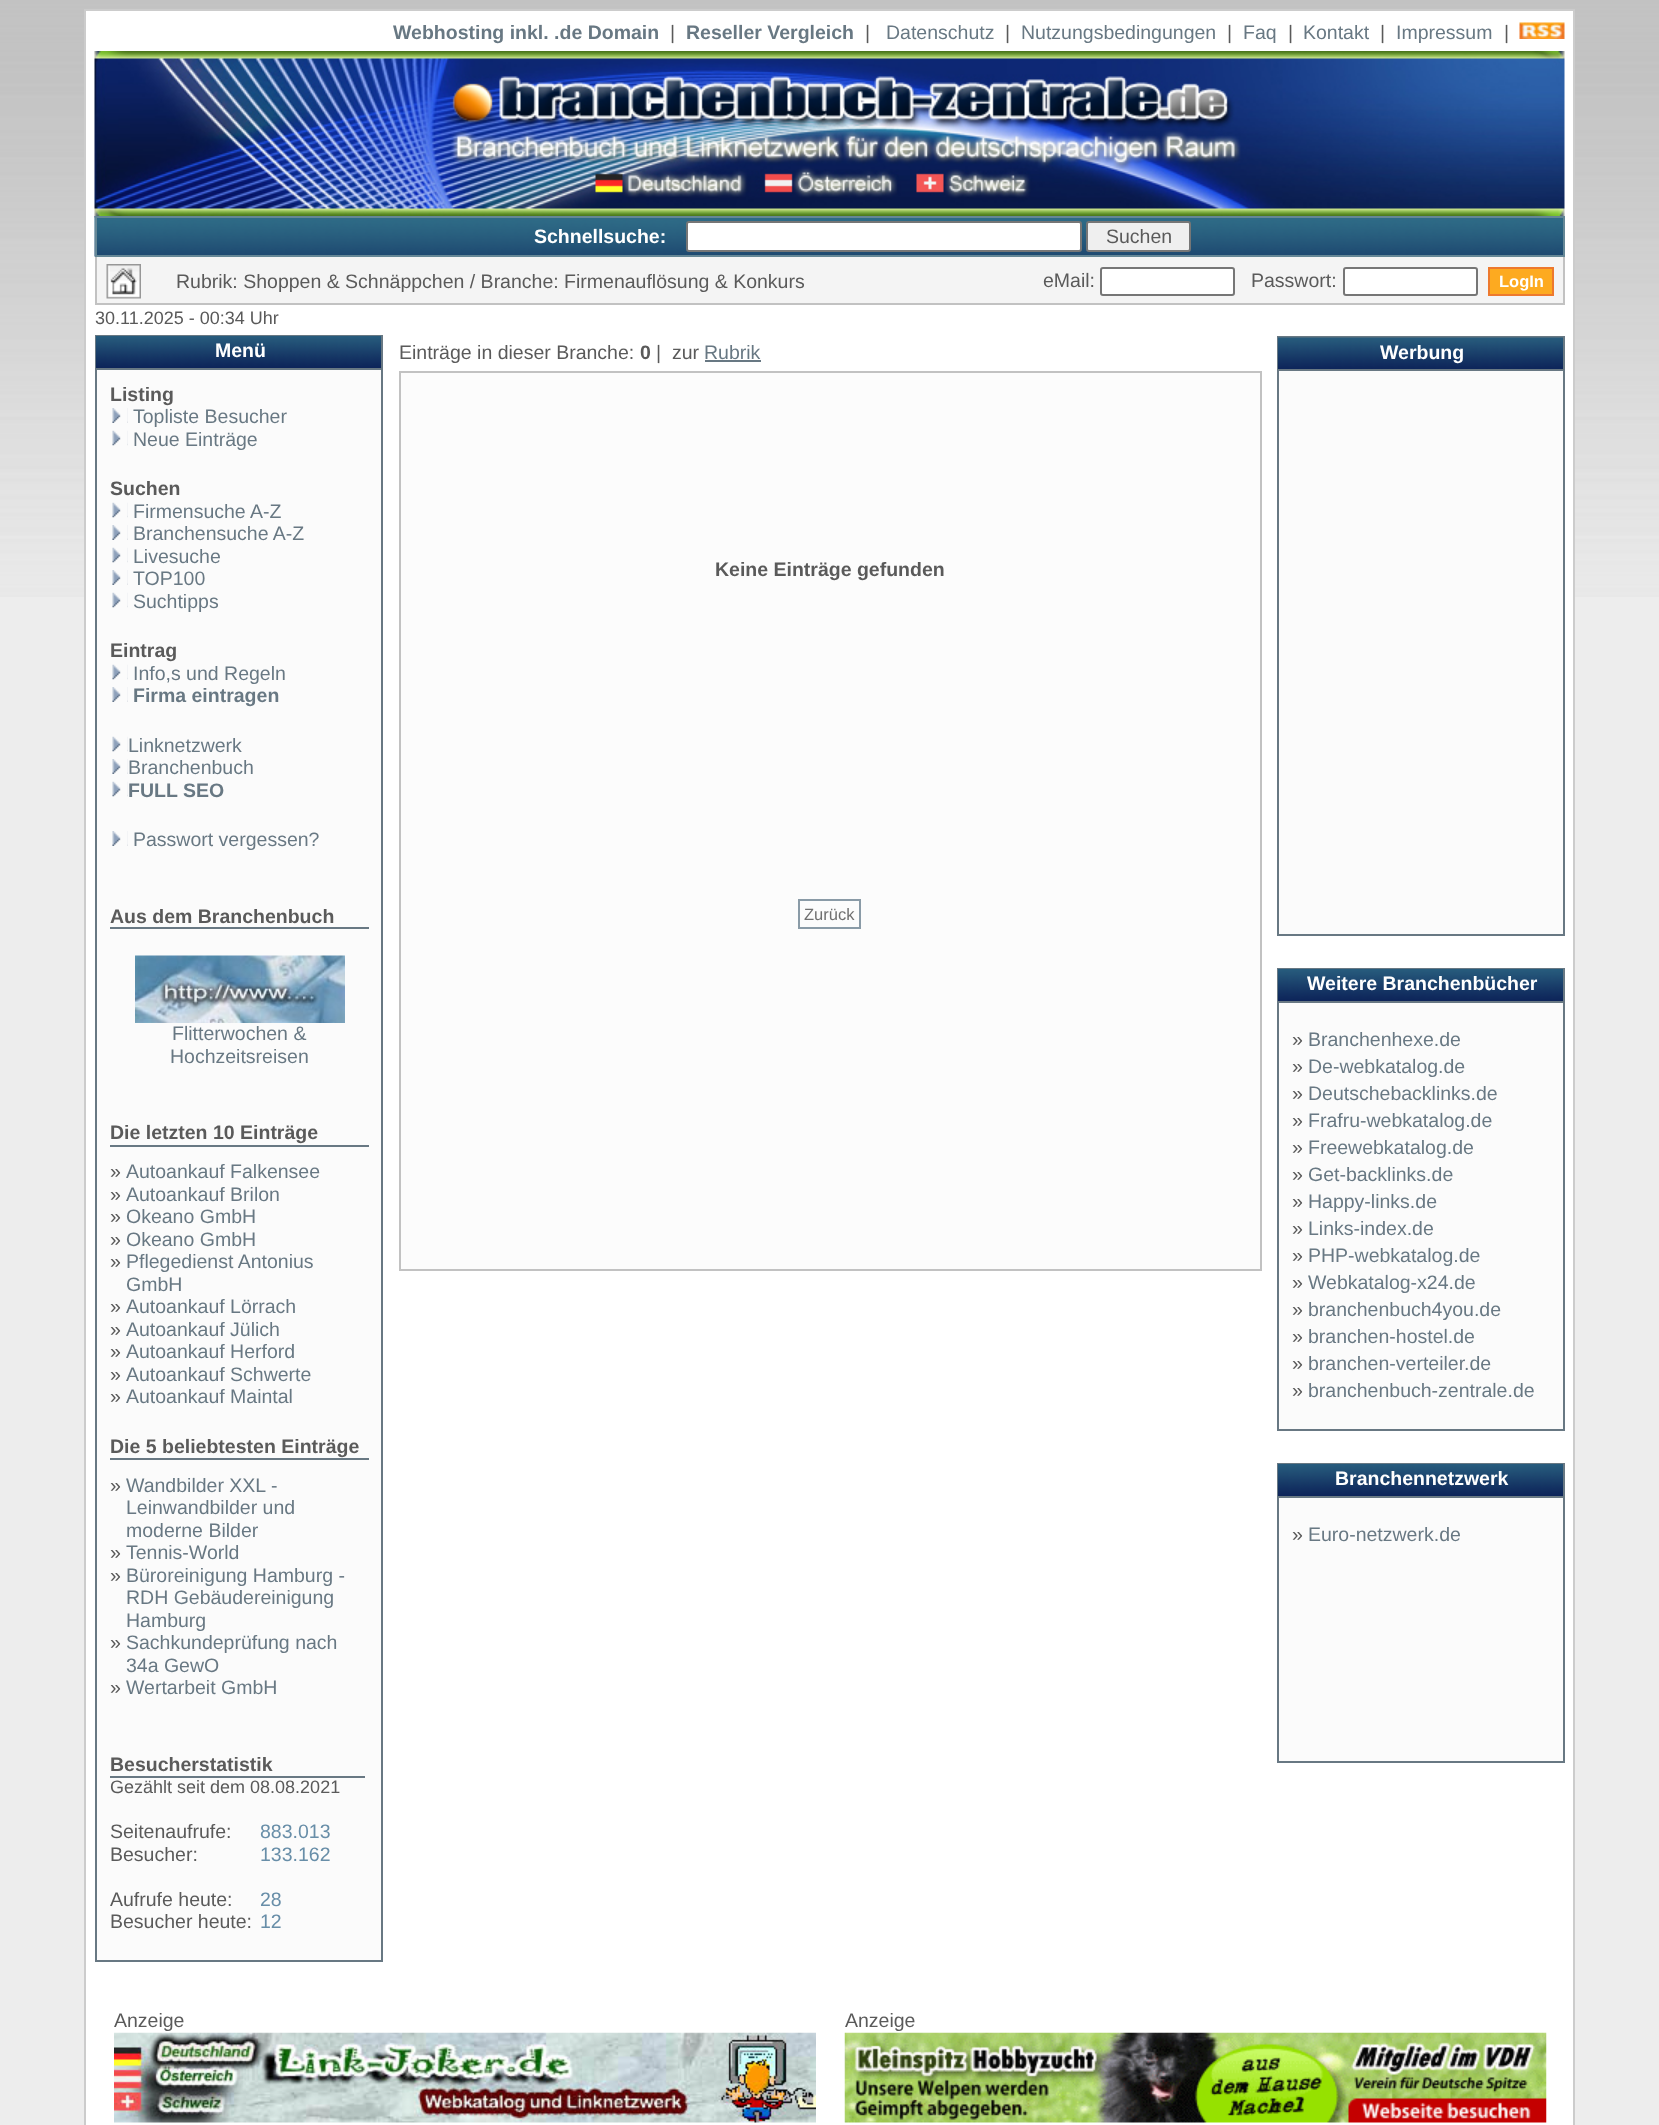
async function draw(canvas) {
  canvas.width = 1659;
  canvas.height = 2125;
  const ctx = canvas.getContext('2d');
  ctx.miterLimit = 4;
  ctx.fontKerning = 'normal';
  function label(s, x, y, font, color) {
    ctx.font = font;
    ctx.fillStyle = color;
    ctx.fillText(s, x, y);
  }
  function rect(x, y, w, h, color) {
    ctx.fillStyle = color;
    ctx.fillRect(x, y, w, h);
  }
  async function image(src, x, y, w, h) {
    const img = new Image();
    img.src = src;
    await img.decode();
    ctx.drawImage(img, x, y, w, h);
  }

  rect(0, 0, 1659, 2125, '#ededed');
  await image('assets/img1.png', 0, 0, 1659, 597);
  ctx.fillStyle = '#fff';
  ctx.beginPath();
  ctx.rect(85, 10, 1489, 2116);
  ctx.fill();
  ctx.strokeStyle = '#ccc';
  ctx.lineWidth = 2;
  ctx.stroke();
  label('Webhosting inkl. .de Domain', 393, 39, 'bold 19.5px Liberation Sans', '#687883');
  label('|', 670, 39, '19.5px Liberation Sans', '#5a5a5a');
  label('Reseller Vergleich', 686, 39, 'bold 19.5px Liberation Sans', '#687883');
  label('|', 865, 39, '19.5px Liberation Sans', '#5a5a5a');
  label('Datenschutz', 886, 39, '19.5px Liberation Sans', '#687883');
  label('|', 1005, 39, '19.5px Liberation Sans', '#5a5a5a');
  label('Nutzungsbedingungen', 1021, 39, '19.5px Liberation Sans', '#687883');
  label('|', 1227, 39, '19.5px Liberation Sans', '#5a5a5a');
  label('Faq', 1243, 39, '19.5px Liberation Sans', '#687883');
  label('|', 1288, 39, '19.5px Liberation Sans', '#5a5a5a');
  label('Kontakt', 1303, 39, '19.5px Liberation Sans', '#687883');
  label('|', 1380, 39, '19.5px Liberation Sans', '#5a5a5a');
  label('Impressum', 1396, 39, '19.5px Liberation Sans', '#687883');
  label('|', 1504, 39, '19.5px Liberation Sans', '#5a5a5a');
  await image('assets/img2.png', 1519, 22, 46, 17);
  await image('assets/img3.png', 94, 51, 1471, 165);
  await image('assets/img4.png', 94, 216, 1469, 41);
  ctx.strokeStyle = '#658796';
  ctx.strokeRect(96, 217, 1468, 39);
  label('Schnellsuche:', 534, 243, 'bold 19.5px Liberation Sans', '#fff');
  ctx.beginPath();
  ctx.roundRect(687, 222, 394, 29, 2);
  ctx.fill();
  ctx.strokeStyle = '#767676';
  ctx.stroke();
  ctx.fillStyle = '#efefef';
  ctx.beginPath();
  ctx.roundRect(1087, 222, 103, 29, 2);
  ctx.fill();
  ctx.stroke();
  label('Suchen', 1106, 243, '19.5px Liberation Sans', '#5a5a5a');
  rect(97, 257, 1466, 46, '#f4f4f4');
  rect(1563, 257, 2, 48, '#c2c2c2');
  rect(95, 303, 1470, 2, '#c2c2c2');
  rect(95, 257, 2, 48, '#c2c2c2');
  await image('assets/img5.png', 106, 264, 35, 35);
  label('Rubrik: Shoppen & Schnäppchen / Branche: Firmenauflösung & Konkurs', 176, 288, '19.5px Liberation Sans', '#5a5a5a');
  label('eMail:', 1043, 287, '19.5px Liberation Sans', '#5a5a5a');
  ctx.fillStyle = '#fff';
  ctx.beginPath();
  ctx.roundRect(1101, 268, 133, 27, 2);
  ctx.fill();
  ctx.stroke();
  label('Passwort:', 1251, 287, '19.5px Liberation Sans', '#5a5a5a');
  ctx.fillStyle = '#fff';
  ctx.beginPath();
  ctx.roundRect(1344, 268, 133, 27, 2);
  ctx.fill();
  ctx.stroke();
  ctx.fillStyle = '#fdaa20';
  ctx.beginPath();
  ctx.rect(1489, 268, 64, 27);
  ctx.fill();
  ctx.strokeStyle = '#ed792e';
  ctx.stroke();
  label('LogIn', 1499, 287, 'bold 16.5px Liberation Sans', '#fff');
  label('30.11.2025 - 00:34 Uhr', 95, 324, '18px Liberation Sans', '#5a5a5a');
  rect(97, 370, 284, 1590, '#fbfbfb');
  ctx.strokeStyle = '#687883';
  ctx.strokeRect(96, 336, 286, 1625);
  await image('assets/img6.png', 96, 336, 285, 32);
  rect(96, 368, 285, 2, '#687883');
  label('Menü', 215, 357, 'bold 19.5px Liberation Sans', '#fff');
  label('Listing', 110, 401, 'bold 19.5px Liberation Sans', '#5a5a5a');
  await image('assets/img7.png', 112, 408, 16, 15);
  label('Topliste Besucher', 133, 423, '19.5px Liberation Sans', '#687883');
  await image('assets/img8.png', 112, 430, 16, 16);
  label('Neue Einträge', 133, 446, '19.5px Liberation Sans', '#687883');
  label('Suchen', 110, 495, 'bold 19.5px Liberation Sans', '#5a5a5a');
  await image('assets/img9.png', 112, 502, 16, 16);
  label('Firmensuche A-Z', 133, 518, '19.5px Liberation Sans', '#687883');
  await image('assets/img7.png', 112, 525, 16, 15);
  label('Branchensuche A-Z', 133, 540, '19.5px Liberation Sans', '#687883');
  await image('assets/img9.png', 112, 547, 16, 16);
  label('Livesuche', 133, 563, '19.5px Liberation Sans', '#687883');
  await image('assets/img7.png', 112, 570, 16, 15);
  label('TOP100', 133, 585, '19.5px Liberation Sans', '#687883');
  await image('assets/img8.png', 112, 592, 16, 16);
  label('Suchtipps', 133, 608, '19.5px Liberation Sans', '#687883');
  label('Eintrag', 110, 657, 'bold 19.5px Liberation Sans', '#5a5a5a');
  await image('assets/img9.png', 112, 664, 16, 16);
  label('Info,s und Regeln', 133, 680, '19.5px Liberation Sans', '#687883');
  await image('assets/img7.png', 112, 687, 16, 15);
  label('Firma eintragen', 133, 702, 'bold 19.5px Liberation Sans', '#687883');
  await image('assets/img8.png', 112, 736, 16, 16);
  label('Linknetzwerk', 128, 752, '19.5px Liberation Sans', '#687883');
  await image('assets/img7.png', 112, 759, 16, 15);
  label('Branchenbuch', 128, 774, '19.5px Liberation Sans', '#687883');
  await image('assets/img9.png', 112, 781, 16, 16);
  label('FULL SEO', 128, 797, 'bold 19.5px Liberation Sans', '#687883');
  await image('assets/img7.png', 112, 831, 16, 15);
  label('Passwort vergessen?', 133, 846, '19.5px Liberation Sans', '#687883');
  label('Aus dem Branchenbuch', 110, 923, 'bold 19.5px Liberation Sans', '#5a5a5a');
  rect(110, 927, 259, 2, '#687883');
  await image('assets/img10.png', 135, 955, 210, 68);
  label('Flitterwochen &', 172, 1040, '19.5px Liberation Sans', '#687883');
  label('Hochzeitsreisen', 170, 1063, '19.5px Liberation Sans', '#687883');
  label('Die letzten 10 Einträge', 110, 1139, 'bold 19.5px Liberation Sans', '#5a5a5a');
  rect(110, 1145, 259, 2, '#687883');
  label('»', 110, 1178, '19.5px Liberation Sans', '#5a5a5a');
  label('Autoankauf Falkensee', 126, 1178, '19.5px Liberation Sans', '#687883');
  label('»', 110, 1201, '19.5px Liberation Sans', '#5a5a5a');
  label('Autoankauf Brilon', 126, 1201, '19.5px Liberation Sans', '#687883');
  label('»', 110, 1223, '19.5px Liberation Sans', '#5a5a5a');
  label('Okeano GmbH', 126, 1223, '19.5px Liberation Sans', '#687883');
  label('»', 110, 1246, '19.5px Liberation Sans', '#5a5a5a');
  label('Okeano GmbH', 126, 1246, '19.5px Liberation Sans', '#687883');
  label('»', 110, 1268, '19.5px Liberation Sans', '#5a5a5a');
  label('Pflegedienst Antonius', 126, 1268, '19.5px Liberation Sans', '#687883');
  label('GmbH', 126, 1291, '19.5px Liberation Sans', '#687883');
  label('»', 110, 1313, '19.5px Liberation Sans', '#5a5a5a');
  label('Autoankauf Lörrach', 126, 1313, '19.5px Liberation Sans', '#687883');
  label('»', 110, 1336, '19.5px Liberation Sans', '#5a5a5a');
  label('Autoankauf Jülich', 126, 1336, '19.5px Liberation Sans', '#687883');
  label('»', 110, 1358, '19.5px Liberation Sans', '#5a5a5a');
  label('Autoankauf Herford', 126, 1358, '19.5px Liberation Sans', '#687883');
  label('»', 110, 1381, '19.5px Liberation Sans', '#5a5a5a');
  label('Autoankauf Schwerte', 126, 1381, '19.5px Liberation Sans', '#687883');
  label('»', 110, 1403, '19.5px Liberation Sans', '#5a5a5a');
  label('Autoankauf Maintal', 126, 1403, '19.5px Liberation Sans', '#687883');
  label('Die 5 beliebtesten Einträge', 110, 1453, 'bold 19.5px Liberation Sans', '#5a5a5a');
  rect(110, 1458, 259, 2, '#687883');
  label('»', 110, 1492, '19.5px Liberation Sans', '#5a5a5a');
  label('Wandbilder XXL -', 126, 1492, '19.5px Liberation Sans', '#687883');
  label('Leinwandbilder und', 126, 1514, '19.5px Liberation Sans', '#687883');
  label('moderne Bilder', 126, 1537, '19.5px Liberation Sans', '#687883');
  label('»', 110, 1559, '19.5px Liberation Sans', '#5a5a5a');
  label('Tennis-World', 126, 1559, '19.5px Liberation Sans', '#687883');
  label('»', 110, 1582, '19.5px Liberation Sans', '#5a5a5a');
  label('Büroreinigung Hamburg -', 126, 1582, '19.5px Liberation Sans', '#687883');
  label('RDH Gebäudereinigung', 126, 1604, '19.5px Liberation Sans', '#687883');
  label('Hamburg', 126, 1627, '19.5px Liberation Sans', '#687883');
  label('»', 110, 1649, '19.5px Liberation Sans', '#5a5a5a');
  label('Sachkundeprüfung nach', 126, 1649, '19.5px Liberation Sans', '#687883');
  label('34a GewO', 126, 1672, '19.5px Liberation Sans', '#687883');
  label('»', 110, 1694, '19.5px Liberation Sans', '#5a5a5a');
  label('Wertarbeit GmbH', 126, 1694, '19.5px Liberation Sans', '#687883');
  label('Besucherstatistik', 110, 1771, 'bold 19.5px Liberation Sans', '#5a5a5a');
  rect(110, 1776, 255, 2, '#687883');
  label('Gezählt seit dem 08.08.2021', 110, 1793, '18px Liberation Sans', '#5a5a5a');
  label('Seitenaufrufe:', 110, 1838, '19.5px Liberation Sans', '#5a5a5a');
  label('Besucher:', 110, 1861, '19.5px Liberation Sans', '#5a5a5a');
  label('Aufrufe heute:', 110, 1906, '19.5px Liberation Sans', '#5a5a5a');
  label('Besucher heute:', 110, 1928, '19.5px Liberation Sans', '#5a5a5a');
  label('883.013', 260, 1838, '19.5px Liberation Sans', '#688ea8');
  label('133.162', 260, 1861, '19.5px Liberation Sans', '#688ea8');
  label('28', 260, 1906, '19.5px Liberation Sans', '#688ea8');
  label('12', 260, 1928, '19.5px Liberation Sans', '#688ea8');
  label('Einträge in dieser Branche:', 399, 359, '19.5px Liberation Sans', '#5a5a5a');
  label('0', 640, 359, 'bold 19.5px Liberation Sans', '#5a5a5a');
  label('|  zur', 656, 359, '19.5px Liberation Sans', '#5a5a5a');
  label('Rubrik', 704, 359, '19.5px Liberation Sans', '#687883');
  rect(705, 360, 56, 2, '#687883');
  ctx.fillStyle = '#fcfcfc';
  ctx.beginPath();
  ctx.rect(400, 372, 861, 898);
  ctx.fill();
  ctx.strokeStyle = '#c2c2c2';
  ctx.stroke();
  label('Keine Einträge gefunden', 715, 576, 'bold 19.5px Liberation Sans', '#5a5a5a');
  ctx.strokeStyle = '#8a9ba7';
  ctx.strokeRect(799, 900, 61, 28);
  label('Zurück', 804, 920, '16.5px Liberation Sans', '#707070');
  rect(1279, 371, 284, 563, '#fbfbfb');
  ctx.strokeStyle = '#687883';
  ctx.strokeRect(1278, 337, 286, 598);
  await image('assets/img11.png', 1278, 337, 285, 32);
  rect(1278, 369, 285, 2, '#687883');
  label('Werbung', 1380, 359, 'bold 19.5px Liberation Sans', '#fff');
  rect(1279, 1003, 284, 426, '#fbfbfb');
  ctx.strokeRect(1278, 969, 286, 461);
  await image('assets/img12.png', 1278, 969, 285, 32);
  rect(1278, 1001, 285, 2, '#687883');
  label('Weitere Branchenbücher', 1307, 990, 'bold 19.5px Liberation Sans', '#fff');
  label('»', 1292, 1046, '19.5px Liberation Sans', '#5a5a5a');
  label('Branchenhexe.de', 1308, 1046, '19.5px Liberation Sans', '#687883');
  label('»', 1292, 1073, '19.5px Liberation Sans', '#5a5a5a');
  label('De-webkatalog.de', 1308, 1073, '19.5px Liberation Sans', '#687883');
  label('»', 1292, 1100, '19.5px Liberation Sans', '#5a5a5a');
  label('Deutschebacklinks.de', 1308, 1100, '19.5px Liberation Sans', '#687883');
  label('»', 1292, 1127, '19.5px Liberation Sans', '#5a5a5a');
  label('Frafru-webkatalog.de', 1308, 1127, '19.5px Liberation Sans', '#687883');
  label('»', 1292, 1154, '19.5px Liberation Sans', '#5a5a5a');
  label('Freewebkatalog.de', 1308, 1154, '19.5px Liberation Sans', '#687883');
  label('»', 1292, 1181, '19.5px Liberation Sans', '#5a5a5a');
  label('Get-backlinks.de', 1308, 1181, '19.5px Liberation Sans', '#687883');
  label('»', 1292, 1208, '19.5px Liberation Sans', '#5a5a5a');
  label('Happy-links.de', 1308, 1208, '19.5px Liberation Sans', '#687883');
  label('»', 1292, 1235, '19.5px Liberation Sans', '#5a5a5a');
  label('Links-index.de', 1308, 1235, '19.5px Liberation Sans', '#687883');
  label('»', 1292, 1262, '19.5px Liberation Sans', '#5a5a5a');
  label('PHP-webkatalog.de', 1308, 1262, '19.5px Liberation Sans', '#687883');
  label('»', 1292, 1289, '19.5px Liberation Sans', '#5a5a5a');
  label('Webkatalog-x24.de', 1308, 1289, '19.5px Liberation Sans', '#687883');
  label('»', 1292, 1316, '19.5px Liberation Sans', '#5a5a5a');
  label('branchenbuch4you.de', 1308, 1316, '19.5px Liberation Sans', '#687883');
  label('»', 1292, 1343, '19.5px Liberation Sans', '#5a5a5a');
  label('branchen-hostel.de', 1308, 1343, '19.5px Liberation Sans', '#687883');
  label('»', 1292, 1370, '19.5px Liberation Sans', '#5a5a5a');
  label('branchen-verteiler.de', 1308, 1370, '19.5px Liberation Sans', '#687883');
  label('»', 1292, 1397, '19.5px Liberation Sans', '#5a5a5a');
  label('branchenbuch-zentrale.de', 1308, 1397, '19.5px Liberation Sans', '#687883');
  rect(1279, 1498, 284, 263, '#fbfbfb');
  ctx.strokeRect(1278, 1464, 286, 298);
  await image('assets/img13.png', 1278, 1464, 285, 32);
  rect(1278, 1496, 285, 2, '#687883');
  label('Branchennetzwerk', 1335, 1485, 'bold 19.5px Liberation Sans', '#fff');
  label('»', 1292, 1541, '19.5px Liberation Sans', '#5a5a5a');
  label('Euro-netzwerk.de', 1308, 1541, '19.5px Liberation Sans', '#687883');
  label('Anzeige', 114, 2027, '19.5px Liberation Sans', '#5a5a5a');
  await image('assets/img14.png', 114, 2032, 702, 91);
  label('Anzeige', 845, 2027, '19.5px Liberation Sans', '#5a5a5a');
  await image('assets/img15.png', 844, 2032, 703, 91);
}

draw(document.querySelector('canvas'));
